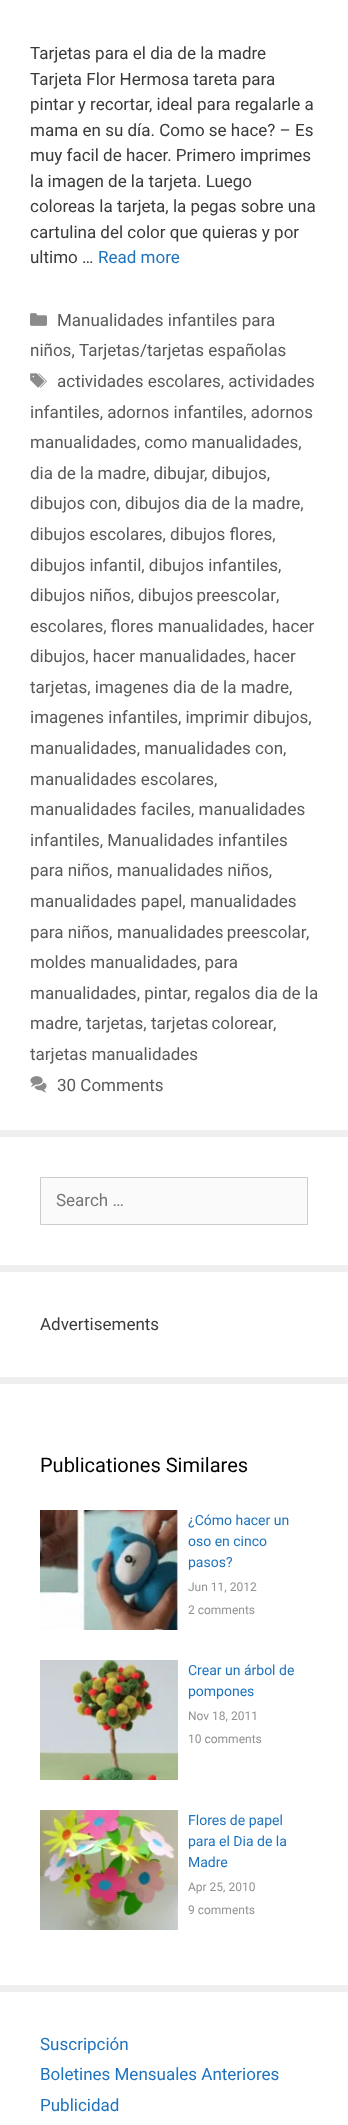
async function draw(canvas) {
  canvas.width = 348;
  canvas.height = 2125;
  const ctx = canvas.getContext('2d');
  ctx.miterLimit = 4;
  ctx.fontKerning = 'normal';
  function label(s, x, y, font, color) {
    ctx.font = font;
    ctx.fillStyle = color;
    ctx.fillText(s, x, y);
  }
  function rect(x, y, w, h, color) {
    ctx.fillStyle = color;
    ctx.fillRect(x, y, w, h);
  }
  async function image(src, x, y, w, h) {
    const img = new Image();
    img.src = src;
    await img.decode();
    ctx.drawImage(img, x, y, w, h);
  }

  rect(0, 0, 348, 2125, '#efefef');
  rect(0, 0, 348, 1130, '#fff');
  label('Tarjetas para el dia de la madre', 30, 59, '17px Roboto', '#3a3a3a');
  label('Tarjeta Flor Hermosa tareta para', 30, 85, '17px Roboto', '#3a3a3a');
  label('pintar y recortar, ideal para regalarle a', 30, 110, '17px Roboto', '#3a3a3a');
  label('mama en su día. Como se hace? – Es', 30, 136, '17px Roboto', '#3a3a3a');
  label('muy facil de hacer. Primero imprimes', 30, 161, '17px Roboto', '#3a3a3a');
  label('la imagen de la tarjeta. Luego', 30, 187, '17px Roboto', '#3a3a3a');
  label('coloreas la tarjeta, la pegas sobre una', 30, 212, '17px Roboto', '#3a3a3a');
  label('cartulina del color que quieras y por', 30, 238, '17px Roboto', '#3a3a3a');
  label('ultimo …', 30, 263, '17px Roboto', '#3a3a3a');
  label('Read more', 98, 263, '17px Roboto', '#1e73be');
  await image('assets/img1.png', 30, 313, 17, 13);
  label('Manualidades infantiles para', 57, 326, '17px Roboto', '#595959');
  label('niños,', 30, 356, '17px Roboto', '#595959');
  label('Tarjetas/tarjetas españolas', 79, 356, '17px Roboto', '#595959');
  await image('assets/img2.png', 30, 373, 17, 15);
  label('actividades escolares, actividades', 57, 387, '17px Roboto', '#595959');
  label('infantiles, adornos infantiles, adornos', 30, 418, '17px Roboto', '#595959');
  label('manualidades, como manualidades,', 30, 448, '17px Roboto', '#595959');
  label('dia de la madre, dibujar', 30, 479, '17px Roboto', '#595959');
  label(', dibujos,', 204, 479, '17px Roboto', '#595959');
  label('dibujos con, dibujos dia de la madre,', 30, 509, '17px Roboto', '#595959');
  label('dibujos escolares, dibujos flores,', 30, 540, '17px Roboto', '#595959');
  label('dibujos infantil, dibujos infantiles,', 30, 571, '17px Roboto', '#595959');
  label('dibujos niños,', 30, 601, '17px Roboto', '#595959');
  ctx.wordSpacing = '-1px';
  label('dibujos preescolar', 138, 601, '17px Roboto', '#595959');
  ctx.wordSpacing = '0px';
  label(',', 276, 601, '17px Roboto', '#595959');
  label('escolares, flores manualidades, hacer', 30, 632, '17px Roboto', '#595959');
  label('dibujos, hacer manualidades, hacer', 30, 662, '17px Roboto', '#595959');
  label('tarjetas, imagenes dia de la madre,', 30, 693, '17px Roboto', '#595959');
  label('imagenes infantiles, imprimir dibujos,', 30, 723, '17px Roboto', '#595959');
  label('manualidades, manualidades con,', 30, 754, '17px Roboto', '#595959');
  label('manualidades escolares,', 30, 785, '17px Roboto', '#595959');
  label('manualidades faciles, manualidades', 30, 815, '17px Roboto', '#595959');
  label('infantiles, Manualidades infantiles', 30, 846, '17px Roboto', '#595959');
  label('para niños, manualidades niños,', 30, 876, '17px Roboto', '#595959');
  label('manualidades papel, manualidades', 30, 907, '17px Roboto', '#595959');
  label('para niños,', 30, 938, '17px Roboto', '#595959');
  ctx.wordSpacing = '-1px';
  label('manualidades preescolar', 117, 938, '17px Roboto', '#595959');
  ctx.wordSpacing = '0px';
  label(',', 306, 938, '17px Roboto', '#595959');
  label('moldes manualidades, para', 30, 968, '17px Roboto', '#595959');
  label('manualidades, pintar', 30, 999, '17px Roboto', '#595959');
  label(', regalos dia de la', 187, 999, '17px Roboto', '#595959');
  label('madre, tarjetas,', 30, 1029, '17px Roboto', '#595959');
  ctx.wordSpacing = '-1px';
  label('tarjetas colorear', 151, 1029, '17px Roboto', '#595959');
  ctx.wordSpacing = '0px';
  label(',', 273, 1029, '17px Roboto', '#595959');
  label('tarjetas manualidades', 30, 1060, '17px Roboto', '#595959');
  await image('assets/img3.png', 30, 1076, 17, 17);
  label('30 Comments', 57, 1091, '17px Roboto', '#595959');
  rect(0, 1137, 348, 128, '#fff');
  ctx.fillStyle = '#fafafa';
  ctx.beginPath();
  ctx.rect(40.5, 1177.5, 267, 47);
  ctx.fill();
  ctx.strokeStyle = '#ccc';
  ctx.stroke();
  label('Search …', 56, 1206, '17px Roboto', '#757575');
  rect(0, 1272, 348, 105, '#fff');
  label('Advertisements', 40, 1330, '17px Roboto', '#3a3a3a');
  rect(0, 1384, 348, 601, '#fff');
  label('Publicationes Similares', 40, 1472, '20px Roboto', '#000');
  await image('assets/img4.png', 40, 1510, 138, 120);
  label('¿Cómo hacer un', 188, 1525, '14px Roboto', '#1e73be');
  label('oso en cinco', 188, 1546, '14px Roboto', '#1e73be');
  label('pasos?', 188, 1567, '14px Roboto', '#1e73be');
  label('Jun 11, 2012', 188, 1591, '12px Roboto', '#929292');
  label('2 comments', 188, 1614, '12px Roboto', '#929292');
  await image('assets/img5.png', 40, 1660, 138, 120);
  label('Crear un árbol de', 188, 1675, '14px Roboto', '#1e73be');
  label('pompones', 188, 1696, '14px Roboto', '#1e73be');
  label('Nov 18, 2011', 188, 1720, '12px Roboto', '#929292');
  label('10 comments', 188, 1743, '12px Roboto', '#929292');
  await image('assets/img6.png', 40, 1810, 138, 120);
  label('Flores de papel', 188, 1825, '14px Roboto', '#1e73be');
  label('para el Dia de la', 188, 1846, '14px Roboto', '#1e73be');
  label('Madre', 188, 1867, '14px Roboto', '#1e73be');
  label('Apr 25, 2010', 188, 1891, '12px Roboto', '#929292');
  label('9 comments', 188, 1914, '12px Roboto', '#929292');
  rect(0, 1992, 348, 133, '#fff');
  label('Suscripción', 40, 2050, '17px Roboto', '#1e73be');
  label('Boletines Mensuales Anteriores', 40, 2080, '17px Roboto', '#1e73be');
  label('Publicidad', 40, 2111, '17px Roboto', '#1e73be');
}

draw(document.querySelector('canvas'));
